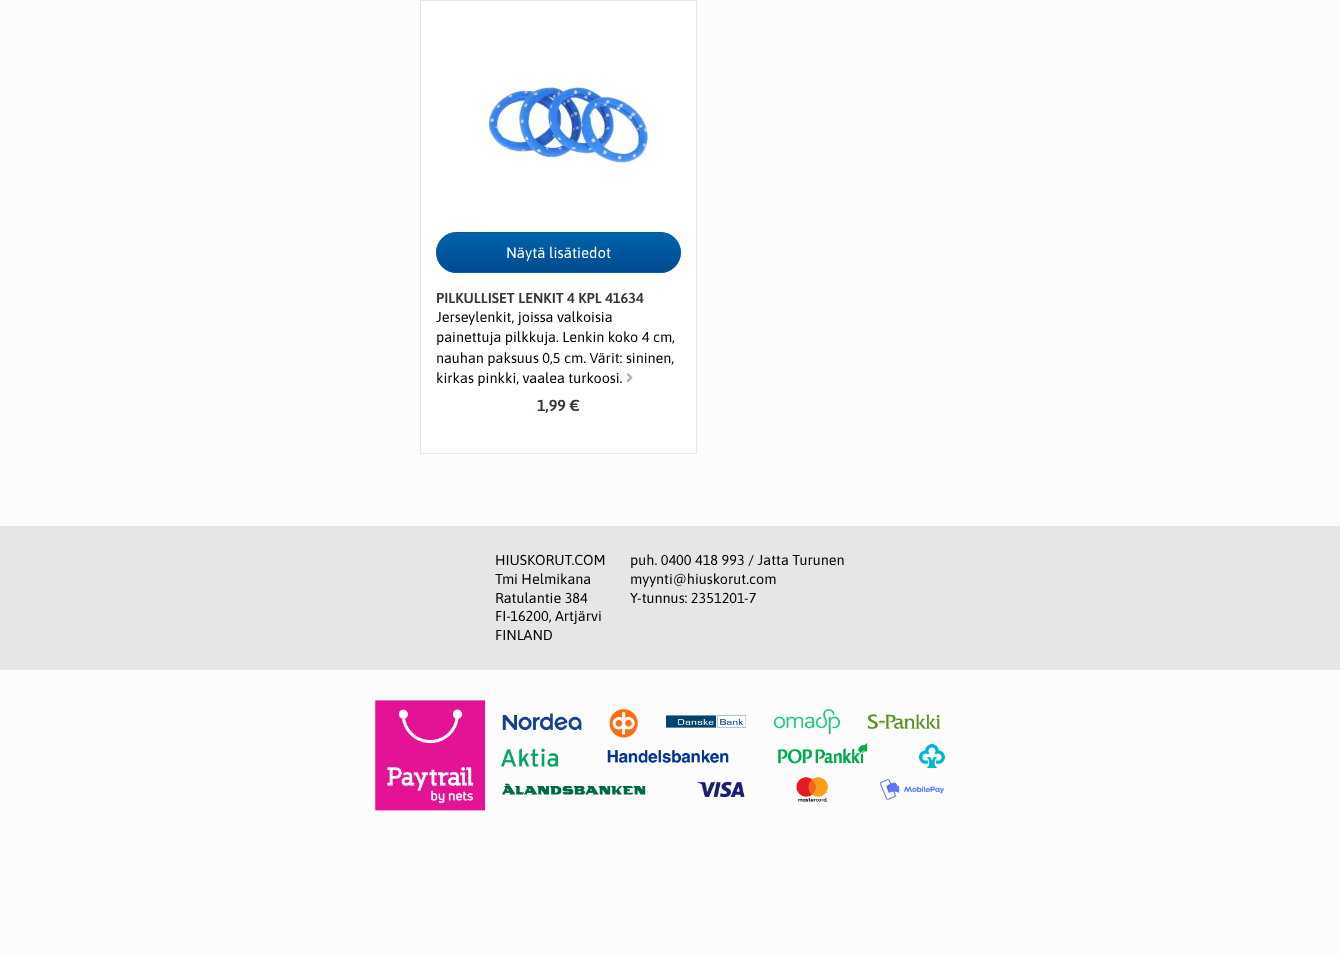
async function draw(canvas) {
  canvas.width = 1340;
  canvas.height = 955;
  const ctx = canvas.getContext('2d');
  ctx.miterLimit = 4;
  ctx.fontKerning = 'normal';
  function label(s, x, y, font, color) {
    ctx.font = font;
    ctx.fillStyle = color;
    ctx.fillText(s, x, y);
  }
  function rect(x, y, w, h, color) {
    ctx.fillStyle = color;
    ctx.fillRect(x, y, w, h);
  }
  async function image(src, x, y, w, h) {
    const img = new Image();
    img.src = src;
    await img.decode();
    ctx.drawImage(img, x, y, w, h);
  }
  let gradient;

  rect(0, 0, 1340, 955, '#fcfcfc');
  ctx.fillStyle = '#fff';
  ctx.beginPath();
  ctx.rect(420.5, 0.5, 276, 453);
  ctx.fill();
  ctx.strokeStyle = '#e6e6e6';
  ctx.stroke();
  await image('assets/img1.png', 487, 86, 162, 77);
  ctx.save();
  ctx.beginPath();
  ctx.roundRect(436, 232, 245, 41, 20.5);
  ctx.clip();
  gradient = ctx.createLinearGradient(559, 194, 559, 233);
  gradient.addColorStop(0, '#0063aa');
  gradient.addColorStop(1, '#004a91');
  ctx.fillStyle = gradient;
  ctx.fillRect(450, 232, 217, 1);
  gradient = ctx.createLinearGradient(559, 233, 559, 272);
  gradient.addColorStop(0, '#0063aa');
  gradient.addColorStop(1, '#004a91');
  ctx.fillStyle = gradient;
  ctx.fillRect(436, 233, 245, 39);
  gradient = ctx.createLinearGradient(559, 272, 559, 311);
  gradient.addColorStop(0, '#0063aa');
  gradient.addColorStop(1, '#004a91');
  ctx.fillStyle = gradient;
  ctx.fillRect(450, 272, 217, 1);
  ctx.restore();
  ctx.beginPath();
  ctx.roundRect(436.5, 232.5, 244, 40, 20);
  ctx.strokeStyle = '#0063aa80';
  ctx.stroke();
  label('Näytä lisätiedot', 506, 258, '15px Asap', '#fff');
  label('PILKULLISET LENKIT 4 KPL 41634', 436, 303, '600 14.4px Asap', '#323838');
  label('Jerseylenkit, joissa valkoisia', 436, 322, '14.4px Asap', '#000');
  label('painettuja pilkkuja. Lenkin koko 4 cm,', 436, 342, '14.4px Asap', '#000');
  label('nauhan paksuus 0,5 cm. Värit: sininen,', 436, 363, '14.4px Asap', '#000');
  label('kirkas pinkki, vaalea turkoosi.', 436, 383, '14.4px Asap', '#000');
  await image('assets/img2.png', 626, 373, 7, 9);
  label('1,99 €', 537, 411, '600 16px Asap', '#323838');
  rect(0, 526, 1340, 144, '#e6e6e6');
  label('HIUSKORUT.COM', 495, 565, '14.4px Asap', '#000');
  label('Tmi Helmikana', 495, 584, '14.4px Asap', '#000');
  label('Ratulantie 384', 495, 603, '14.4px Asap', '#000');
  label('FI-16200, Artjärvi', 495, 621, '14.4px Asap', '#000');
  label('FINLAND', 495, 640, '14.4px Asap', '#000');
  label('puh. 0400 418 993 / Jatta Turunen', 630, 565, '14.4px Asap', '#000');
  label('myynti@hiuskorut.com', 630, 584, '14.4px Asap', '#000');
  label('Y-tunnus: 2351201-7', 630, 603, '14.4px Asap', '#000');
  await image('assets/img3.png', 375, 700, 570, 111);
}

draw(document.querySelector('canvas'));
